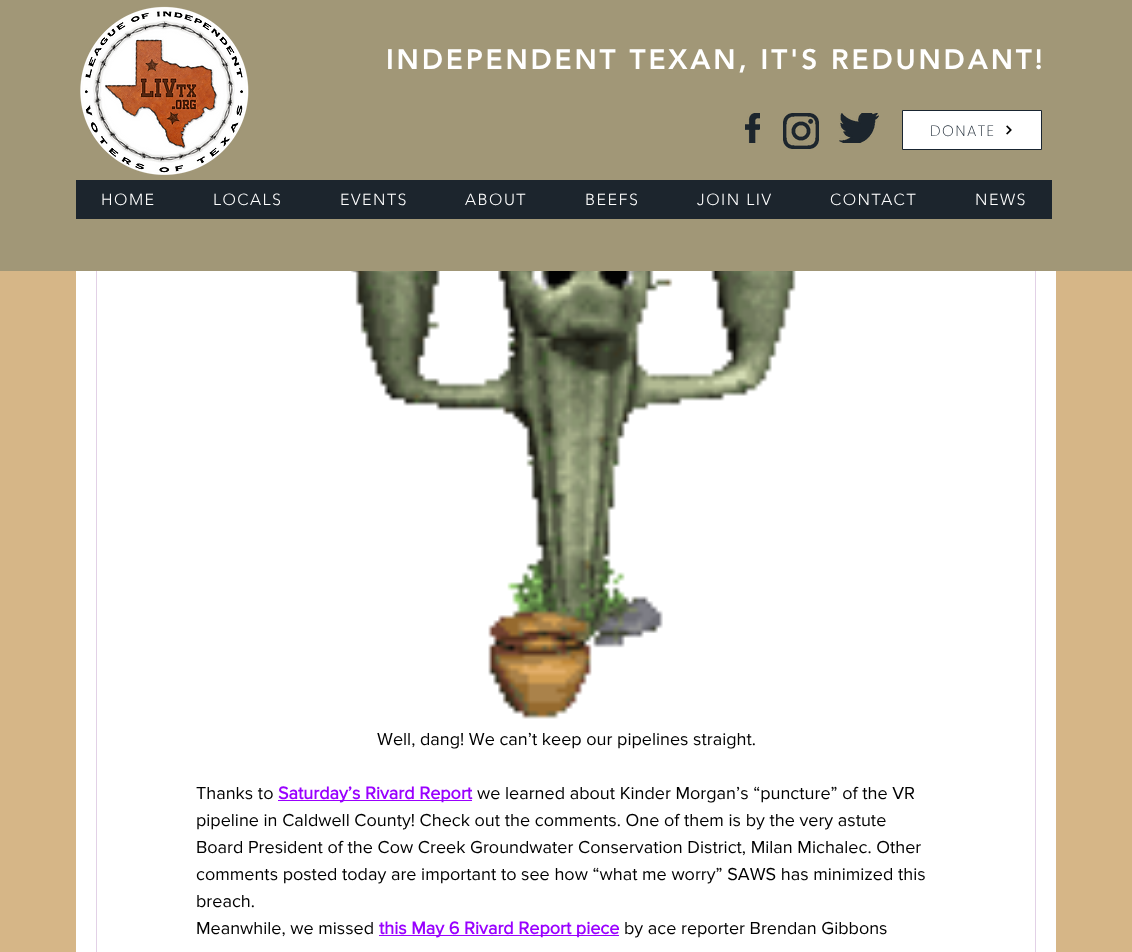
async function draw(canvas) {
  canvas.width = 1132;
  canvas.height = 952;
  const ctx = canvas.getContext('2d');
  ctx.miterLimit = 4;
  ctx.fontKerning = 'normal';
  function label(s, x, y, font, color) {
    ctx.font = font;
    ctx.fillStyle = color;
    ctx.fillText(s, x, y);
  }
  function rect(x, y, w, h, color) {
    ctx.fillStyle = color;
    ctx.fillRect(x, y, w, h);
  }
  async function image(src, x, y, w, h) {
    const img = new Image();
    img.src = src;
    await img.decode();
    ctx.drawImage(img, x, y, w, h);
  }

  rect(0, 0, 1132, 952, '#d6b687');
  rect(76, 271, 980, 681, '#fff');
  ctx.strokeStyle = '#e2d1e6';
  ctx.strokeRect(96.5, -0.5, 939, 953);
  rect(0, 0, 1132, 271, '#a19777');
  await image('assets/img1.png', 80, 6, 169, 169);
  ctx.letterSpacing = '2.8px';
  label('INDEPENDENT TEXAN, IT\'S REDUNDANT!', 386, 69, '900 28px "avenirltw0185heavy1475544"', '#fff');
  await image('assets/img2.png', 745, 113, 15, 30);
  await image('assets/img3.png', 783, 113, 36, 36);
  await image('assets/img4.png', 839, 113, 40, 30);
  ctx.beginPath();
  ctx.rect(902.5, 110.5, 139, 39);
  ctx.fill();
  ctx.strokeStyle = '#192531';
  ctx.stroke();
  ctx.letterSpacing = '1.5px';
  label('DONATE', 930, 136, '200 15px Poppins', '#192531');
  await image('assets/img5.png', 1006, 125, 6, 10);
  rect(76, 180, 976, 39, '#1c252d');
  label('HOME', 101, 205, '300 16px "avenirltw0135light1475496"', '#fff');
  label('LOCALS', 213, 205, '300 16px "avenirltw0135light1475496"', '#fff');
  label('EVENTS', 340, 205, '300 16px "avenirltw0135light1475496"', '#fff');
  label('ABOUT', 465, 205, '300 16px "avenirltw0135light1475496"', '#fff');
  label('BEEFS', 585, 205, '300 16px "avenirltw0135light1475496"', '#fff');
  label('JOIN LIV', 697, 205, '300 16px "avenirltw0135light1475496"', '#fff');
  label('CONTACT', 830, 205, '300 16px "avenirltw0135light1475496"', '#fff');
  label('NEWS', 975, 205, '300 16px "avenirltw0135light1475496"', '#fff');
  await image('assets/img6.png', 351, 271, 445, 448);
  ctx.letterSpacing = '0px';
  label('Well, dang! We can’t keep our pipelines straight.', 377, 745, '18px "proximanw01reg"', '#000');
  label('Thanks to', 196, 799, '18px "proximanw01reg"', '#000');
  rect(278, 800, 194, 1, '#90f');
  label('Saturday’s Rivard Report', 278, 799, 'bold 18px "proximanw01reg"', '#90f');
  label('we learned about Kinder Morgan’s “puncture” of the VR', 477, 799, '18px "proximanw01reg"', '#000');
  label('pipeline in Caldwell County! Check out the comments. One of them is by the very astute', 196, 826, '18px "proximanw01reg"', '#000');
  label('Board President of the Cow Creek Groundwater Conservation District, Milan Michalec. Other', 196, 853, '18px "proximanw01reg"', '#000');
  label('comments posted today are important to see how “what me worry” SAWS has minimized this', 196, 880, '18px "proximanw01reg"', '#000');
  label('breach.', 196, 907, '18px "proximanw01reg"', '#000');
  label('Meanwhile, we missed', 196, 934, '18px "proximanw01reg"', '#000');
  rect(379, 935, 240, 1, '#90f');
  label('this May 6 Rivard Report piece', 379, 934, 'bold 18px "proximanw01reg"', '#90f');
  label('by ace reporter Brendan Gibbons', 624, 934, '18px "proximanw01reg"', '#000');
}

draw(document.querySelector('canvas'));
